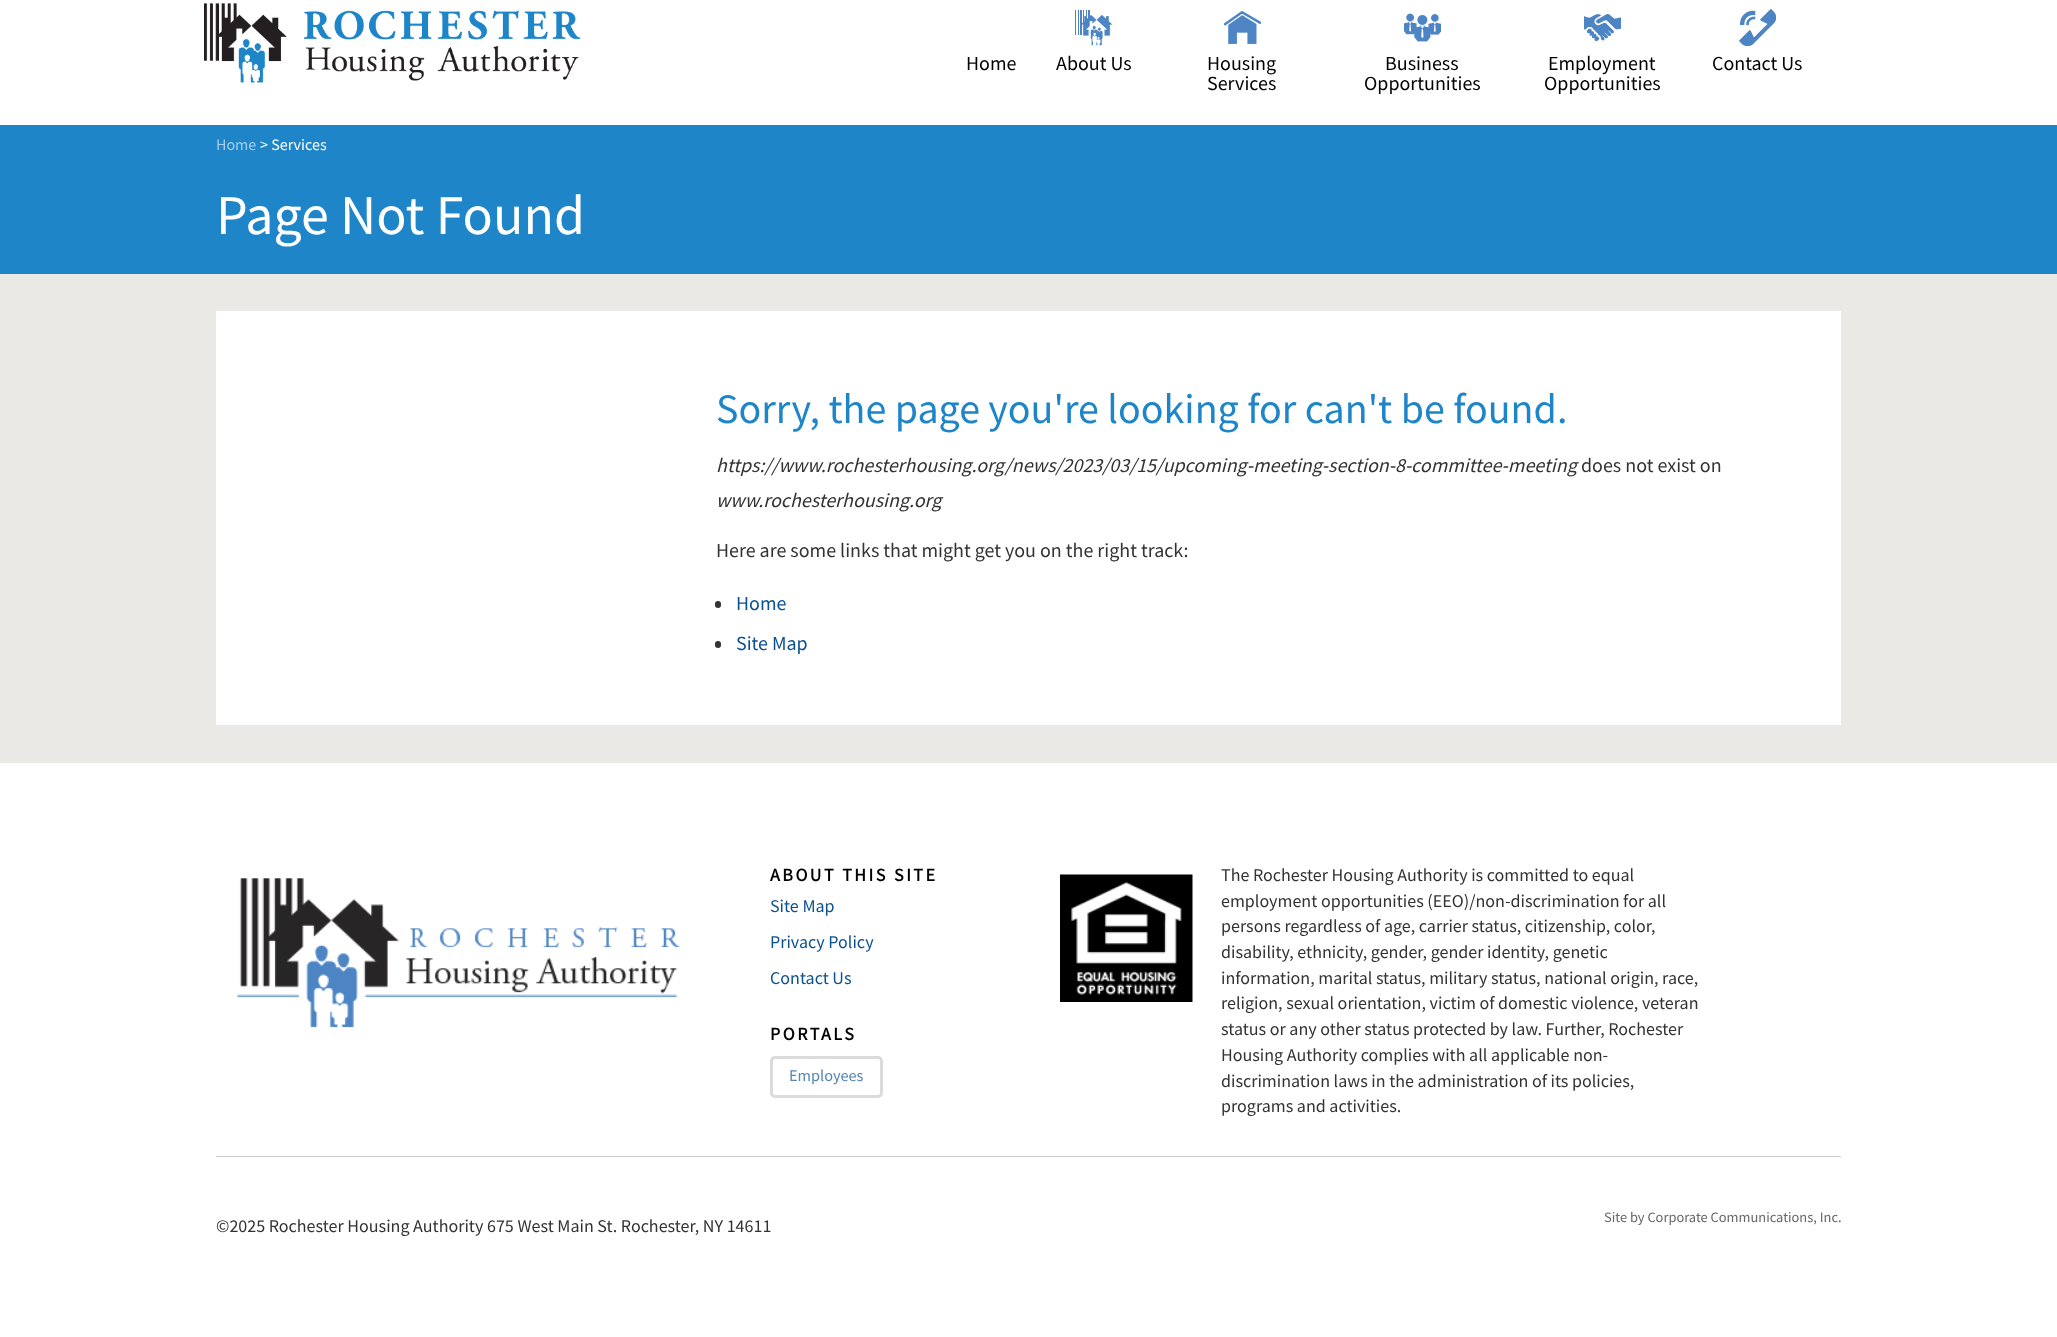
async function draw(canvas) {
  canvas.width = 2057;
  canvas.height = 1337;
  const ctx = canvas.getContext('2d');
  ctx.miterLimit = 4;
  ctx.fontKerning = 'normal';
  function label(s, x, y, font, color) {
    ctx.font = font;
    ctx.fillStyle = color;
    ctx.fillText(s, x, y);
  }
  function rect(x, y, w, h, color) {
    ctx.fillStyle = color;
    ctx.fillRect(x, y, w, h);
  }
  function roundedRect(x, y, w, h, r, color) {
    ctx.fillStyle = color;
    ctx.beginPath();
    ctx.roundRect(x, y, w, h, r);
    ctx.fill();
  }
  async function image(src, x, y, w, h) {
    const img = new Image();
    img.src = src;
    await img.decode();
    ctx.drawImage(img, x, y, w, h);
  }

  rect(0, 0, 2057, 1337, '#eae9e5');
  rect(0, 0, 2057, 125, '#fff');
  await image('assets/img1.png', 204, 3, 377, 80);
  label('Home', 966, 70, '20px Source Sans Pro', '#000');
  await image('assets/img2.png', 1075, 10, 38, 36);
  label('About Us', 1056, 70, '20px Source Sans Pro', '#000');
  await image('assets/img3.png', 1224, 11, 37, 33);
  label('Housing', 1207, 70, '20px Source Sans Pro', '#000');
  label('Services', 1207, 90, '20px Source Sans Pro', '#000');
  await image('assets/img4.png', 1404, 13, 37, 29);
  label('Business', 1385, 70, '20px Source Sans Pro', '#000');
  label('Opportunities', 1364, 90, '20px Source Sans Pro', '#000');
  await image('assets/img5.png', 1584, 14, 37, 27);
  label('Employment', 1548, 70, '20px Source Sans Pro', '#000');
  label('Opportunities', 1544, 90, '20px Source Sans Pro', '#000');
  await image('assets/img6.png', 1739, 9, 37, 37);
  label('Contact Us', 1712, 70, '20px Source Sans Pro', '#000');
  rect(0, 125, 2057, 149, '#1d85c8');
  label('Home', 216, 150, '16px Source Sans Pro', '#a5cee9');
  label('> Services', 260, 150, '16px Source Sans Pro', '#fff');
  label('Page Not Found', 216, 234, '56px Source Sans Pro', '#fff');
  rect(216, 311, 1625, 414, '#fff');
  label('Sorry, the page you\'re looking for can\'t be found.', 716, 423, '42px Source Sans Pro', '#1d85c8');
  label('https://www.rochesterhousing.org/news/2023/03/15/upcoming-meeting-section-8-committee-meeting', 716, 472, 'italic 20px Source Sans Pro', '#333');
  label('does not exist on', 1581, 472, '20px Source Sans Pro', '#333');
  label('www.rochesterhousing.org', 716, 507, 'italic 20px Source Sans Pro', '#333');
  label('Here are some links that might get you on the right track:', 716, 557, '20px Source Sans Pro', '#333');
  roundedRect(715, 601, 6, 7, 3, '#333');
  label('Home', 736, 610, '20px Source Sans Pro', '#0b5192');
  roundedRect(715, 641, 6, 7, 3, '#333');
  label('Site Map', 736, 650, '20px Source Sans Pro', '#0b5192');
  rect(0, 763, 2057, 574, '#fff');
  await image('assets/img7.png', 237, 878, 444, 150);
  ctx.letterSpacing = '2.5px';
  label('ABOUT THIS SITE', 770, 881, 'bold 18px Source Sans Pro', '#000');
  ctx.letterSpacing = '0px';
  label('Site Map', 770, 912, '18px Source Sans Pro', '#0b5192');
  label('Privacy Policy', 770, 948, '18px Source Sans Pro', '#0b5192');
  label('Contact Us', 770, 984, '18px Source Sans Pro', '#0b5192');
  ctx.letterSpacing = '2.5px';
  label('PORTALS', 770, 1040, 'bold 18px Source Sans Pro', '#000');
  ctx.beginPath();
  ctx.roundRect(771.5, 1057.5, 110, 39, 3.5);
  ctx.strokeStyle = '#dbdbdb';
  ctx.lineWidth = 3;
  ctx.stroke();
  ctx.letterSpacing = '0px';
  label('Employees', 789, 1081, '16.25px Source Sans Pro', '#5485b3');
  await image('assets/img8.png', 1060, 874, 133, 128);
  label('The Rochester Housing Authority is committed to equal', 1221, 881, '18px Source Sans Pro', '#333');
  label('employment opportunities (EEO)/non-discrimination for all', 1221, 907, '18px Source Sans Pro', '#333');
  label('persons regardless of age, carrier status, citizenship, color,', 1221, 932, '18px Source Sans Pro', '#333');
  label('disability, ethnicity, gender, gender identity, genetic', 1221, 958, '18px Source Sans Pro', '#333');
  label('information, marital status, military status, national origin, race,', 1221, 984, '18px Source Sans Pro', '#333');
  label('religion, sexual orientation, victim of domestic violence, veteran', 1221, 1009, '18px Source Sans Pro', '#333');
  label('status or any other status protected by law. Further, Rochester', 1221, 1035, '18px Source Sans Pro', '#333');
  label('Housing Authority complies with all applicable non-', 1221, 1061, '18px Source Sans Pro', '#333');
  label('discrimination laws in the administration of its policies,', 1221, 1087, '18px Source Sans Pro', '#333');
  label('programs and activities.', 1221, 1112, '18px Source Sans Pro', '#333');
  rect(216, 1156, 1625, 1, '#ccc');
  label('©2025 Rochester Housing Authority 675 West Main St. Rochester, NY 14611', 216, 1232, '18px Source Sans Pro', '#333');
  label('Site by Corporate Communications, Inc.', 1604, 1222, '14.4px Source Sans Pro', '#666');
}

draw(document.querySelector('canvas'));
